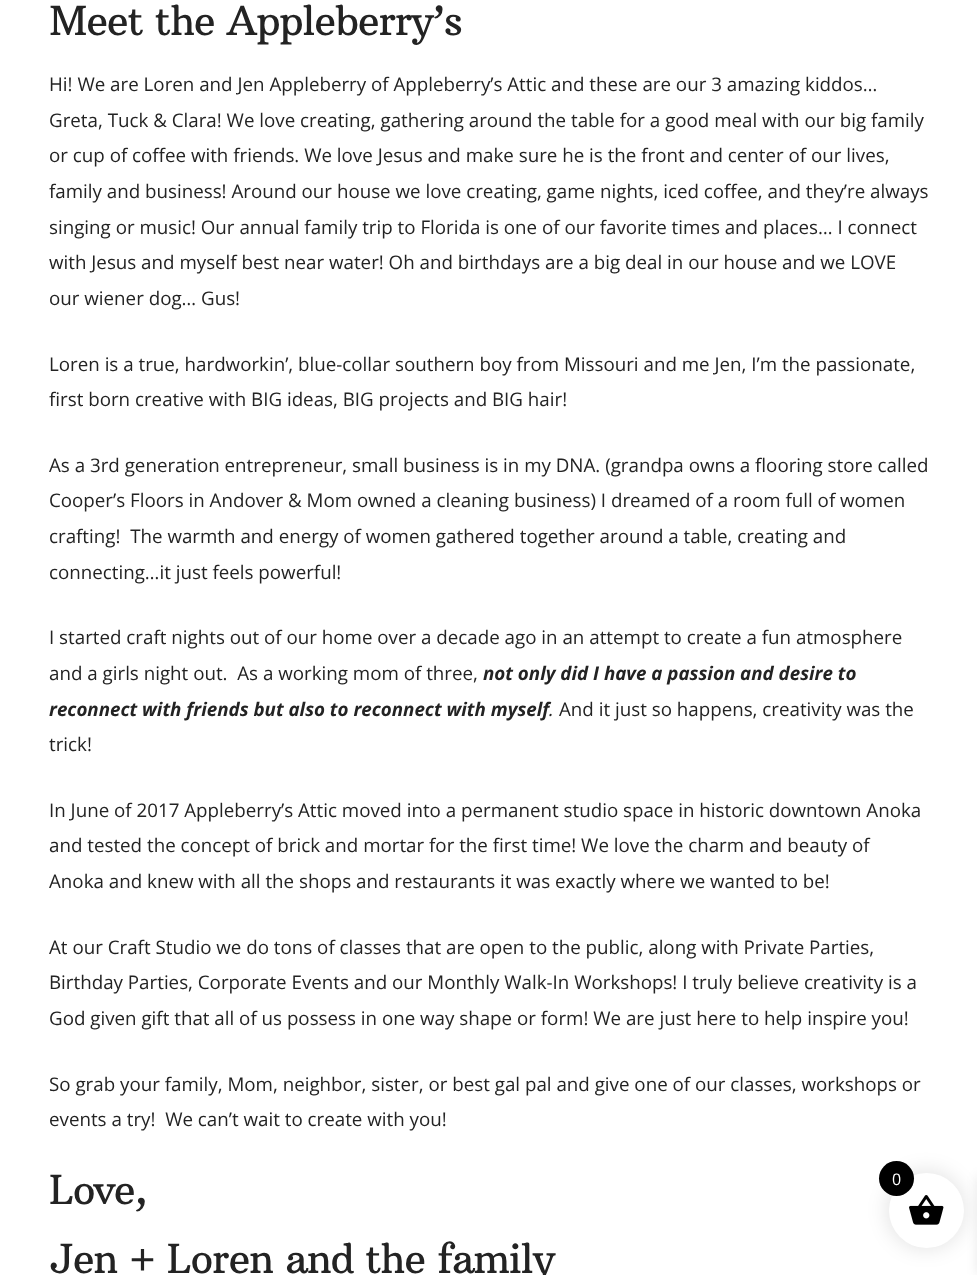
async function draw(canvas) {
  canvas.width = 977;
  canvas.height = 1275;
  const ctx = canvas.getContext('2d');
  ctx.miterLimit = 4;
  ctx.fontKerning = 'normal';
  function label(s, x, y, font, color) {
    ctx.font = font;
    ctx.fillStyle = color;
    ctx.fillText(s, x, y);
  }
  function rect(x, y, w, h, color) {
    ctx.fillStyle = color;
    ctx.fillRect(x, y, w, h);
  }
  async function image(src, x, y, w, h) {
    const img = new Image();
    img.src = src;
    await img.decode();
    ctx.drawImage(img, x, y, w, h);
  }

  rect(0, 0, 977, 1275, '#fff');
  ctx.letterSpacing = '-1.2px';
  label('Meet the Appleberry’s', 49, 35, '40px Arbutus Slab', '#232323');
  ctx.letterSpacing = '0px';
  label('Hi! We are Loren and Jen Appleberry of Appleberry’s Attic and these are our 3 amazing kiddos…', 49, 91, '18.75px Open Sans', '#232323');
  label('Greta, Tuck & Clara! We love creating, gathering around the table for a good meal with our big family', 49, 127, '18.75px Open Sans', '#232323');
  label('or cup of coffee with friends. We love Jesus and make sure he is the front and center of our lives,', 49, 162, '18.75px Open Sans', '#232323');
  label('family and business! Around our house we love creating, game nights, iced coffee, and they’re always', 49, 198, '18.75px Open Sans', '#232323');
  label('singing or music! Our annual family trip to Florida is one of our favorite times and places… I connect', 49, 234, '18.75px Open Sans', '#232323');
  label('with Jesus and myself best near water! Oh and birthdays are a big deal in our house and we LOVE', 49, 269, '18.75px Open Sans', '#232323');
  label('our wiener dog… Gus!', 49, 305, '18.75px Open Sans', '#232323');
  label('Loren is a true, hardworkin’, blue-collar southern boy from Missouri and me Jen, I’m the passionate,', 49, 371, '18.75px Open Sans', '#232323');
  label('first born creative with BIG ideas, BIG projects and BIG hair!', 49, 406, '18.75px Open Sans', '#232323');
  label('As a 3rd generation entrepreneur, small business is in my DNA. (grandpa owns a flooring store called', 49, 472, '18.75px Open Sans', '#232323');
  label('Cooper’s Floors in Andover & Mom owned a cleaning business) I dreamed of a room full of women', 49, 507, '18.75px Open Sans', '#232323');
  label('crafting!  The warmth and energy of women gathered together around a table, creating and', 49, 543, '18.75px Open Sans', '#232323');
  label('connecting…it just feels powerful!', 49, 579, '18.75px Open Sans', '#232323');
  label('I started craft nights out of our home over a decade ago in an attempt to create a fun atmosphere', 49, 644, '18.75px Open Sans', '#232323');
  label('and a girls night out.  As a working mom of three,', 49, 680, '18.75px Open Sans', '#232323');
  label('not only did I have a passion and desire to', 483, 680, 'italic bold 18.75px Open Sans', '#232323');
  label('reconnect with friends but also to reconnect with myself', 49, 716, 'italic bold 18.75px Open Sans', '#232323');
  label('And it just so happens, creativity was the', 559, 716, '18.75px Open Sans', '#232323');
  label('.', 549, 716, 'italic 18.75px Open Sans', '#232323');
  label('trick!', 49, 751, '18.75px Open Sans', '#232323');
  label('In June of 2017 Appleberry’s Attic moved into a permanent studio space in historic downtown Anoka', 49, 817, '18.75px Open Sans', '#232323');
  label('and tested the concept of brick and mortar for the first time! We love the charm and beauty of', 49, 852, '18.75px Open Sans', '#232323');
  label('Anoka and knew with all the shops and restaurants it was exactly where we wanted to be!', 49, 888, '18.75px Open Sans', '#232323');
  label('At our Craft Studio we do tons of classes that are open to the public, along with Private Parties,', 49, 954, '18.75px Open Sans', '#232323');
  label('Birthday Parties, Corporate Events and our Monthly Walk-In Workshops! I truly believe creativity is a', 49, 989, '18.75px Open Sans', '#232323');
  label('God given gift that all of us possess in one way shape or form! We are just here to help inspire you!', 49, 1025, '18.75px Open Sans', '#232323');
  label('So grab your family, Mom, neighbor, sister, or best gal pal and give one of our classes, workshops or', 49, 1091, '18.75px Open Sans', '#232323');
  label('events a try!  We can’t wait to create with you!', 49, 1126, '18.75px Open Sans', '#232323');
  ctx.letterSpacing = '-1.2px';
  label('Love,', 49, 1204, '40px Arbutus Slab', '#232323');
  label('Jen + Loren and the family', 49, 1273, '40px Arbutus Slab', '#232323');
  ctx.fillStyle = '#0000001a';
  ctx.filter = 'blur(9.5px)';
  ctx.beginPath();
  ctx.roundRect(886, 1170, 80, 80, 40);
  ctx.fill();
  ctx.filter = 'none';
  ctx.filter = 'blur(6px)';
  ctx.beginPath();
  ctx.rect(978, 1176, 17, 98);
  ctx.fill();
  ctx.filter = 'none';
  ctx.fillStyle = '#fff';
  ctx.beginPath();
  ctx.arc(926.5, 1210.5, 37.5, 0, 2 * Math.PI);
  ctx.fill();
  await image('assets/img1.png', 909, 1195, 35, 30);
  ctx.fillStyle = '#000';
  ctx.beginPath();
  ctx.arc(896.5, 1178.5, 17.5, 0, 2 * Math.PI);
  ctx.fill();
  ctx.letterSpacing = '0px';
  label('0', 892, 1185, '16px Open Sans', '#fff');
}

draw(document.querySelector('canvas'));
